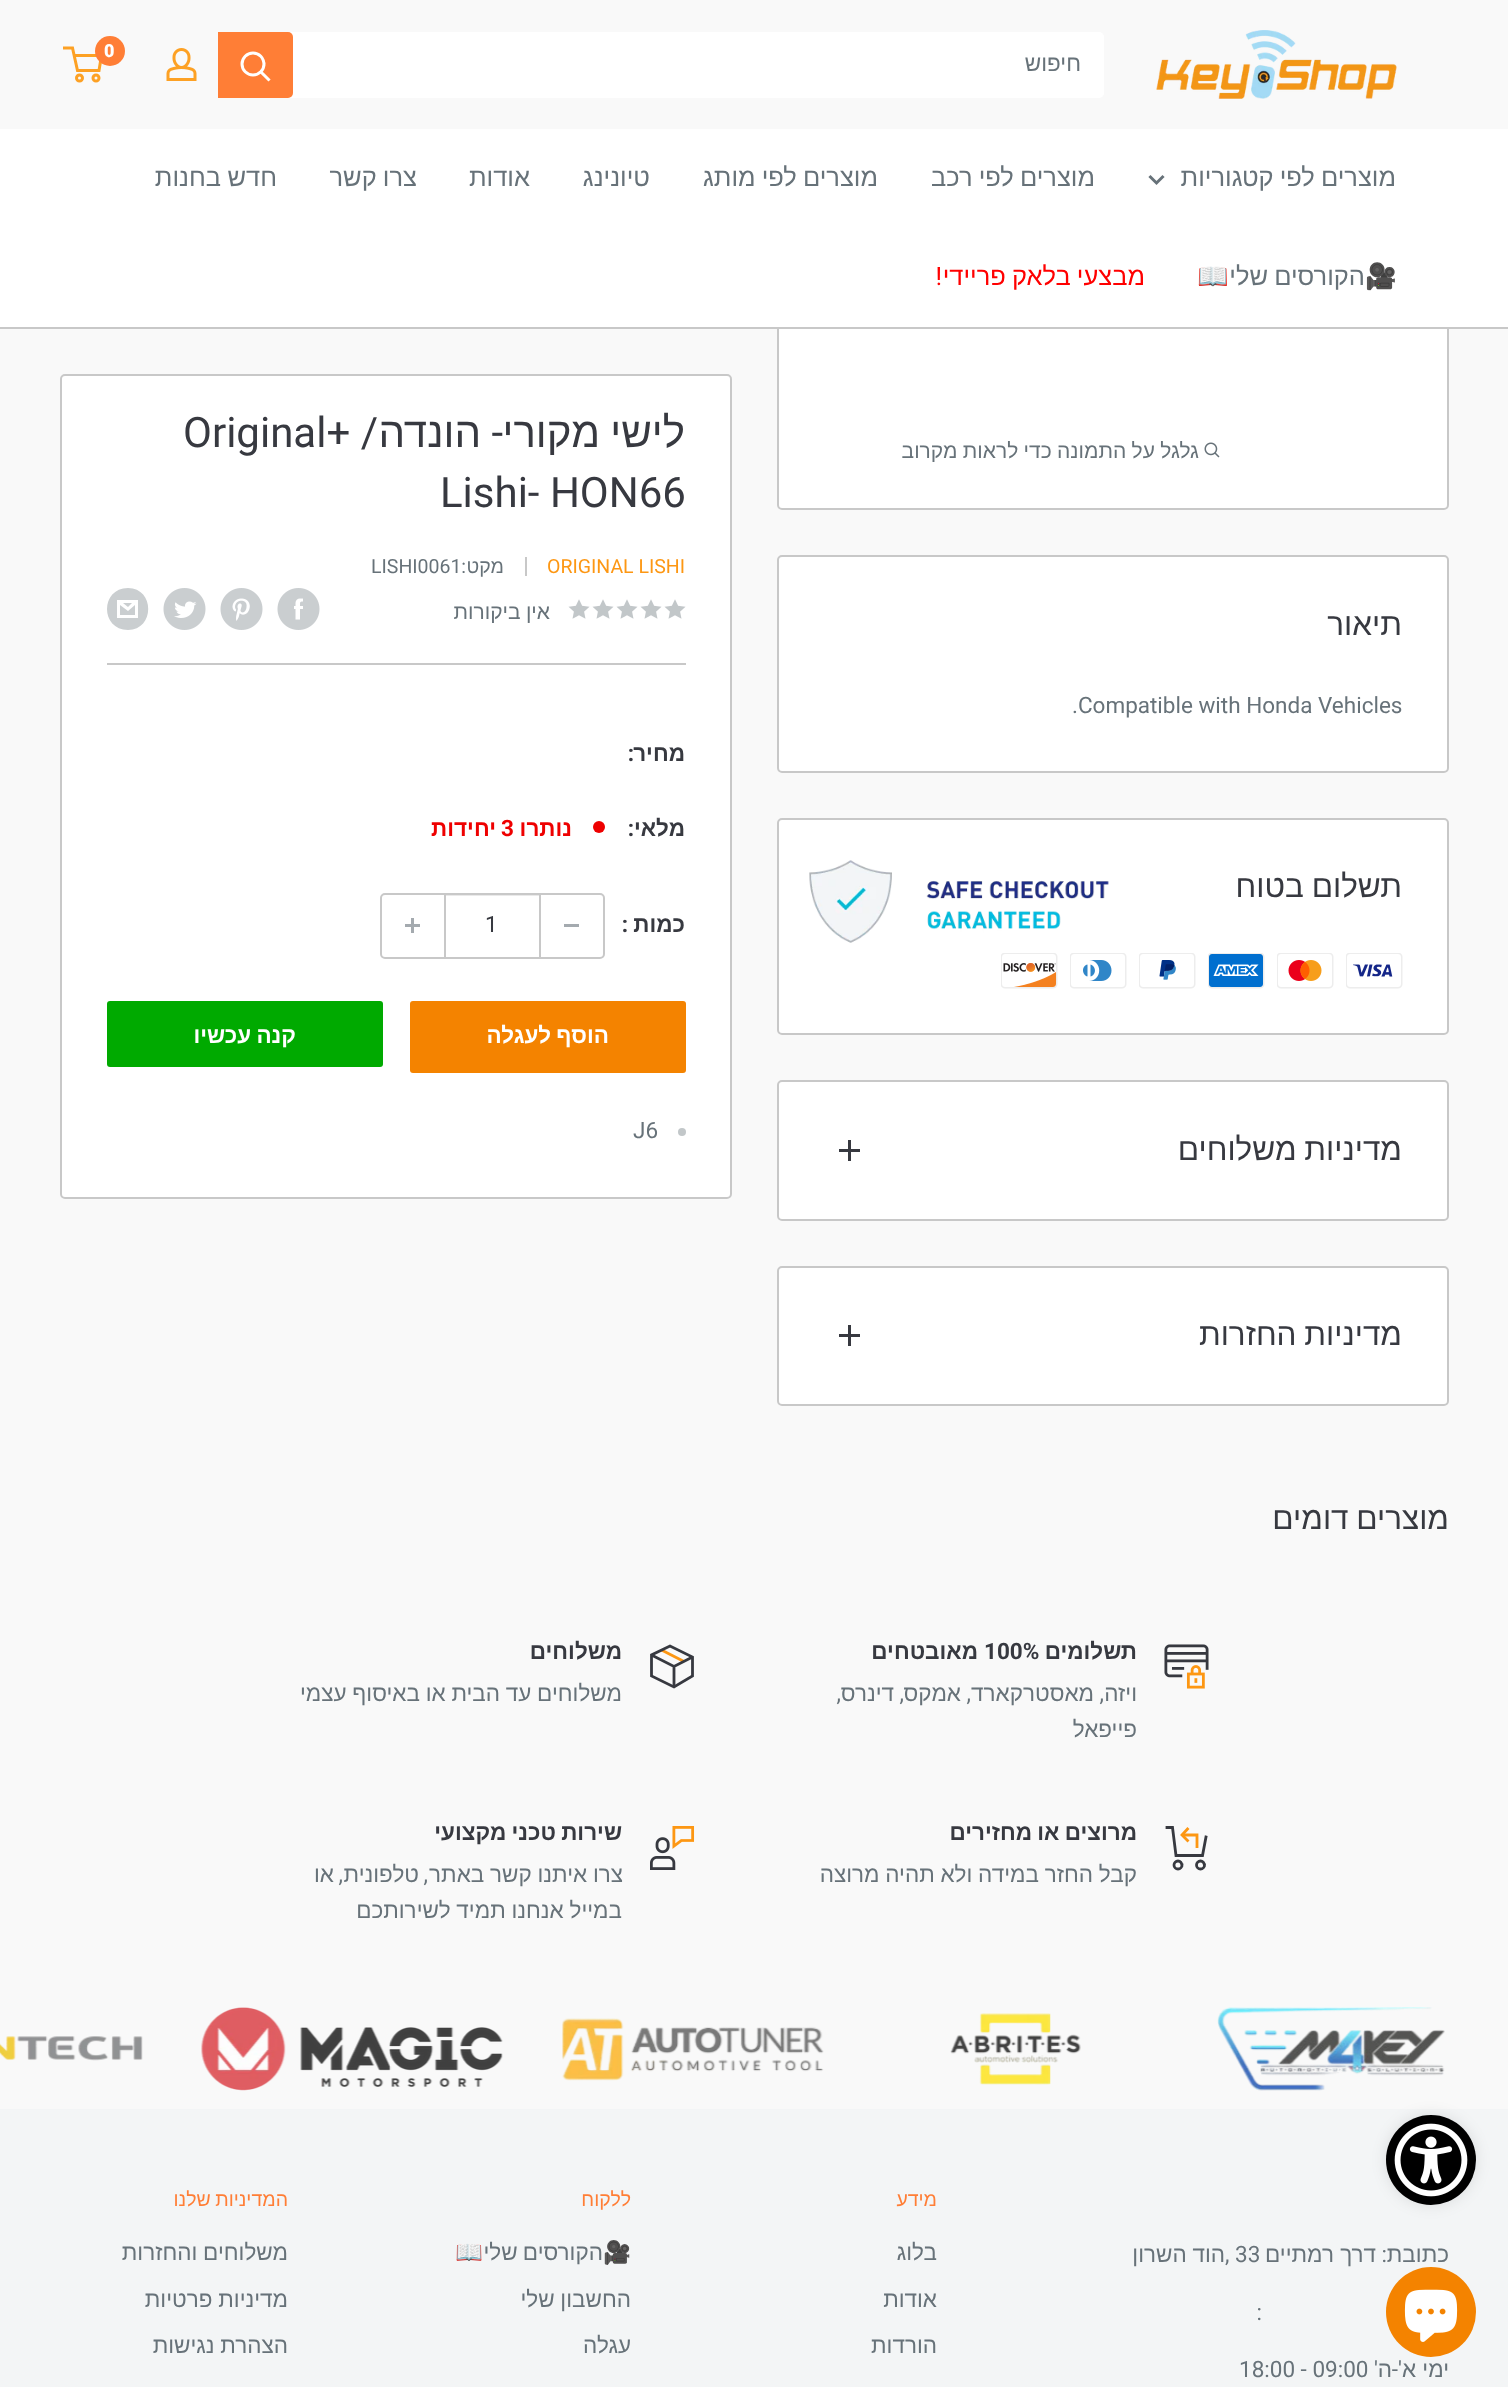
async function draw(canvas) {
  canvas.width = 1508;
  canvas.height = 2387;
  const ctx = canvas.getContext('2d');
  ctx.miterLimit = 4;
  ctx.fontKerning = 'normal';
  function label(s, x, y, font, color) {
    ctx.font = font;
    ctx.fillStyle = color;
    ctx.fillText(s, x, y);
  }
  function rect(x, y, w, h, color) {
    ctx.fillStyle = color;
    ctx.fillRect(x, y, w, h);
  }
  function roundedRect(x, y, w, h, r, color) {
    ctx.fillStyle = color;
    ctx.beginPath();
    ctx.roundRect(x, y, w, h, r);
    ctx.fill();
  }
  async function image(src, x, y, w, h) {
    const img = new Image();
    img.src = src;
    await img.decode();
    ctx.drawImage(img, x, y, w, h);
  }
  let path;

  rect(0, 0, 1508, 2387, '#f9f9f9');
  ctx.fillStyle = '#fff';
  ctx.beginPath();
  ctx.roundRect(778, -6, 670, 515, 4);
  ctx.fill();
  ctx.strokeStyle = '#c8c8c8';
  ctx.lineWidth = 2;
  ctx.stroke();
  rect(777, 0, 672, 129, '#f9f9f9');
  await image('assets/img1.png', 1156, 30, 241, 69);
  await image('assets/img2.png', 166, 48, 31, 33);
  path = new Path2D('M74 55.5H101.5L99 70.5H77.5L72.5 48H63');
  ctx.strokeStyle = '#fda124';
  ctx.lineWidth = 3;
  ctx.stroke(path);
  ctx.fillStyle = '#ff7e36';
  ctx.beginPath();
  ctx.arc(110, 51, 15, 0, 2 * Math.PI);
  ctx.fill();
  label('0', 104, 57, '900 18px Roboto', '#fff');
  ctx.beginPath();
  ctx.arc(79.5, 78, 3, 0, 2 * Math.PI);
  ctx.stroke();
  ctx.beginPath();
  ctx.arc(96, 78, 3, 0, 2 * Math.PI);
  ctx.stroke();
  roundedRect(218, 32, 886, 66, 5, '#fff');
  ctx.direction = 'rtl';
  label('חיפוש', 1081, 71, '22.5px Liberation Sans', '#677279');
  ctx.fillStyle = '#ff7e36';
  ctx.beginPath();
  ctx.roundRect(218, 32, 75, 66, [0, 5, 5, 0]);
  ctx.fill();
  path = new Path2D('M268.5 79.5L261 72');
  ctx.strokeStyle = '#fff';
  ctx.lineCap = 'square';
  ctx.stroke(path);
  ctx.beginPath();
  ctx.arc(253, 64, 11, 0, 2 * Math.PI);
  ctx.stroke();
  rect(0, 129, 1508, 198, '#fff');
  rect(0, 327, 1508, 2, '#c8c8c8');
  ctx.wordSpacing = '-1px';
  label('מוצרים לפי קטגוריות', 1396, 186, '25.5px Liberation Sans', '#677279');
  path = new Path2D('M1162.5 177L1156.5 183L1150.5 177');
  ctx.strokeStyle = '#677279';
  ctx.stroke(path);
  label('מוצרים לפי רכב', 1095, 186, '25.5px Liberation Sans', '#677279');
  label('מוצרים לפי מותג', 878, 186, '25.5px Liberation Sans', '#677279');
  ctx.wordSpacing = '0px';
  label('טיונינג', 650, 186, '25.5px Liberation Sans', '#677279');
  label('אודות', 530, 186, '25.5px Liberation Sans', '#677279');
  ctx.wordSpacing = '-1px';
  label('צרו קשר', 417, 186, '25.5px Liberation Sans', '#677279');
  ctx.wordSpacing = '0px';
  label('חדש', 277, 186, '25.5px Liberation Sans', '#677279');
  label('בחנות', 221, 186, '25.5px Liberation Sans', '#677279');
  label('🎥', 1397, 285, '25.5px Noto Color Emoji', '#677279');
  ctx.wordSpacing = '-1px';
  label('הקורסים שלי', 1365, 285, '25.5px Liberation Sans', '#677279');
  ctx.wordSpacing = '0px';
  label('📖', 1229, 285, '25.5px Noto Color Emoji', '#677279');
  ctx.wordSpacing = '-1px';
  label('מבצעי בלאק פריידי', 1145, 285, '25.5px Liberation Sans', '#f00');
  ctx.wordSpacing = '0px';
  label('!', 942, 285, '25.5px Roboto', '#f00');
  await image('assets/img3.png', 1204, 442, 16, 16);
  ctx.wordSpacing = '-0.5px';
  label('גלגל על התמונה כדי לראות מקרוב', 1199, 458, '21px Liberation Sans', '#677279');
  ctx.fillStyle = '#fff';
  ctx.beginPath();
  ctx.roundRect(61, 375, 670, 823, 4);
  ctx.fill();
  ctx.strokeStyle = '#c8c8c8';
  ctx.lineWidth = 2;
  ctx.stroke();
  ctx.wordSpacing = '0px';
  label('לישי', 685, 447, '42px Liberation Sans', '#373940');
  label('מקורי', 600, 447, '42px Liberation Sans', '#373940');
  label('-', 503, 447, '42px Roboto', '#373940');
  label('הונדה', 481, 447, '42px Liberation Sans', '#373940');
  label('/ +', 378, 447, '42px Roboto', '#373940');
  ctx.direction = 'ltr';
  label('Original', 183, 447, '42px Roboto', '#373940');
  label('Lishi- HON66', 440, 507, '42px Roboto', '#373940');
  label('ORIGINAL LISHI', 547, 573, '19.5px Roboto', '#fd9713');
  rect(525, 557, 2, 19, '#c8c8c8');
  ctx.direction = 'rtl';
  label('מקט', 504, 573, '19.5px Liberation Sans', '#677279');
  label(':', 466, 573, '19.5px Roboto', '#677279');
  ctx.direction = 'ltr';
  label('LISHI0061', 371, 573, '19.5px Roboto', '#677279');
  await image('assets/img4.png', 664, 599, 22, 20);
  await image('assets/img4.png', 640, 599, 22, 20);
  await image('assets/img4.png', 616, 599, 22, 20);
  await image('assets/img4.png', 592, 599, 22, 20);
  await image('assets/img4.png', 568, 599, 22, 20);
  ctx.wordSpacing = '-0.5px';
  ctx.direction = 'rtl';
  label('אין ביקורות', 550, 619, '21px Liberation Sans', '#677279');
  await image('assets/img5.png', 277, 588, 43, 42);
  await image('assets/img6.png', 220, 588, 43, 42);
  await image('assets/img7.png', 163, 588, 43, 42);
  ctx.fillStyle = '#caced0';
  path = new Path2D('M128 630C100 630 100 588 128 588C155 588 155 630 128 630ZM123 603H132L128 607ZM135 605V615H120V605L128 611ZM138 600H117V618H138Z');
  ctx.fill(path);
  rect(107, 663, 579, 2, '#c8c8c8');
  ctx.wordSpacing = '0px';
  label('מחיר', 685, 761, 'bold 22.5px Liberation Sans', '#373940');
  label(':', 634, 761, 'bold 22.5px Roboto', '#373940');
  label('מלאי', 685, 836, 'bold 22.5px Liberation Sans', '#373940');
  label(':', 634, 836, 'bold 22.5px Roboto', '#373940');
  ctx.fillStyle = '#e00';
  ctx.beginPath();
  ctx.arc(599, 827, 6, 0, 2 * Math.PI);
  ctx.fill();
  label('נותרו', 572, 836, 'bold 22.5px Liberation Sans', '#e00');
  ctx.direction = 'ltr';
  label('3', 501, 836, 'bold 22.5px Roboto', '#e00');
  ctx.direction = 'rtl';
  label('יחידות', 496, 836, 'bold 22.5px Liberation Sans', '#e00');
  label('כמות', 685, 932, 'bold 22.5px Liberation Sans', '#373940');
  label(':', 628, 932, 'bold 22.5px Roboto', '#373940');
  ctx.beginPath();
  ctx.roundRect(381, 894, 223, 64, 4);
  ctx.stroke();
  rect(564, 924, 15, 3, '#a4aaaf');
  rect(446, 895, 93, 1, '#c8c8c866');
  rect(539, 894, 2, 63, '#c8c8c8');
  rect(444, 894, 2, 63, '#c8c8c8');
  ctx.direction = 'ltr';
  label('1', 485, 932, '22.5px Roboto', '#373940');
  await image('assets/img8.png', 405, 918, 15, 15);
  roundedRect(410, 1001, 276, 72, 3, '#f48300');
  ctx.wordSpacing = '-1px';
  ctx.direction = 'rtl';
  label('הוסף לעגלה', 609, 1043, 'bold 22.5px Liberation Sans', '#fff');
  roundedRect(107, 1001, 276, 66, 3, '#0a0');
  label('קנה עכשיו', 296, 1043, 'bold 22.5px Liberation Sans', '#fff');
  ctx.fillStyle = '#c2c7c9';
  ctx.beginPath();
  ctx.arc(682, 1132, 4, 0, 2 * Math.PI);
  ctx.fill();
  ctx.wordSpacing = '0px';
  ctx.direction = 'ltr';
  label('J6', 633, 1138, '22.5px Roboto', '#677279');
  ctx.fillStyle = '#fff';
  ctx.beginPath();
  ctx.roundRect(778, 556, 670, 216, 4);
  ctx.fill();
  ctx.stroke();
  ctx.direction = 'rtl';
  label('תיאור', 1402, 635, '31.5px Liberation Sans', '#373940');
  ctx.direction = 'ltr';
  label('.Compatible with Honda Vehicles', 1072, 713, '22.5px Roboto', '#677279');
  ctx.fillStyle = '#fff';
  ctx.beginPath();
  ctx.roundRect(778, 819, 670, 215, 4);
  ctx.fill();
  ctx.stroke();
  await image('assets/img9.png', 809, 860, 300, 83);
  await image('assets/img10.png', 1346, 953, 57, 36);
  await image('assets/img11.png', 1277, 953, 57, 36);
  await image('assets/img12.png', 1208, 953, 57, 36);
  await image('assets/img13.png', 1139, 953, 57, 36);
  await image('assets/img14.png', 1070, 953, 57, 36);
  await image('assets/img15.png', 1001, 953, 57, 36);
  ctx.wordSpacing = '-1px';
  ctx.direction = 'rtl';
  label('תשלום בטוח', 1402, 897, '31.5px Liberation Sans', '#373940');
  ctx.fillStyle = '#fff';
  ctx.beginPath();
  ctx.roundRect(778, 1081, 670, 139, 4);
  ctx.fill();
  ctx.stroke();
  label('מדיניות משלוחים', 1402, 1160, '31.5px Liberation Sans', '#373940');
  rect(848, 1140, 3, 21, '#373940');
  rect(839, 1149, 21, 3, '#373940');
  ctx.fillStyle = '#fff';
  ctx.beginPath();
  ctx.roundRect(778, 1267, 670, 138, 4);
  ctx.fill();
  ctx.stroke();
  label('מדיניות החזרות', 1402, 1345, '31.5px Liberation Sans', '#373940');
  rect(848, 1325, 3, 21, '#373940');
  rect(839, 1334, 21, 3, '#373940');
  label('מוצרים דומים', 1449, 1529, '31.5px Liberation Sans', '#373940');
  await image('assets/img16.png', 1164, 1644, 45, 45);
  ctx.wordSpacing = '0px';
  label('תשלומים', 1137, 1659, 'bold 22.5px Liberation Sans', '#373940');
  ctx.direction = 'ltr';
  label('100%', 984, 1659, 'bold 22.5px Roboto', '#373940');
  ctx.direction = 'rtl';
  label('מאובטחים', 978, 1659, 'bold 22.5px Liberation Sans', '#373940');
  label('ויזה', 1137, 1701, '22.5px Liberation Sans', '#677279');
  label(',', 1104, 1701, '22.5px Roboto', '#677279');
  label('מאסטרקארד', 1094, 1701, '22.5px Liberation Sans', '#677279');
  label(',', 971, 1701, '22.5px Roboto', '#677279');
  label('אמקס', 961, 1701, '22.5px Liberation Sans', '#677279');
  label(',', 904, 1701, '22.5px Roboto', '#677279');
  label('דינרס', 894, 1701, '22.5px Liberation Sans', '#677279');
  label(',', 841, 1701, '22.5px Roboto', '#677279');
  label('פייפאל', 1137, 1737, '22.5px Liberation Sans', '#677279');
  path = new Path2D('M661.5 1650L684 1661.5');
  ctx.strokeStyle = '#fd9713';
  ctx.lineWidth = 2.8;
  ctx.lineCap = 'butt';
  ctx.stroke(path);
  path = new Path2D('M692.5 1657L674 1666.5L651.5 1655M674 1666.5V1687');
  ctx.strokeStyle = '#373940';
  ctx.stroke(path);
  path = new Path2D('M692.5 1657V1676L674 1687L651.5 1676V1655L670 1646Z');
  ctx.lineCap = 'square';
  ctx.stroke(path);
  label('משלוחים', 622, 1659, 'bold 22.5px Liberation Sans', '#373940');
  ctx.wordSpacing = '-0.5px';
  label('משלוחים עד הבית או באיסוף עצמי', 622, 1701, '22.5px Liberation Sans', '#677279');
  path = new Path2D('M1182 1835H1197V1848');
  ctx.strokeStyle = '#fd9713';
  ctx.lineCap = 'butt';
  ctx.stroke(path);
  path = new Path2D('M1187.5 1840.5L1182 1835L1187.5 1829');
  ctx.lineCap = 'square';
  ctx.stroke(path);
  path = new Path2D('M1206 1837L1202.5 1855.5H1176L1172.5 1827.5H1167');
  ctx.strokeStyle = '#373940';
  ctx.stroke(path);
  ctx.beginPath();
  ctx.arc(1200.5, 1865, 4, 0, 2 * Math.PI);
  ctx.stroke();
  ctx.beginPath();
  ctx.arc(1178, 1865, 4, 0, 2 * Math.PI);
  ctx.stroke();
  ctx.wordSpacing = '-1px';
  label('מרוצים או מחזירים', 1137, 1840, 'bold 22.5px Liberation Sans', '#373940');
  ctx.wordSpacing = '-0.5px';
  label('קבל החזר במידה ולא תהיה מרוצה', 1137, 1882, '22.5px Liberation Sans', '#677279');
  await image('assets/img17.png', 650, 1826, 45, 44);
  ctx.wordSpacing = '-1px';
  label('שירות טכני מקצועי', 622, 1840, 'bold 22.5px Liberation Sans', '#373940');
  ctx.wordSpacing = '-0.5px';
  label('צרו איתנו קשר באתר', 623, 1882, '22.5px Liberation Sans', '#677279');
  ctx.wordSpacing = '0px';
  label(',', 428, 1882, '22.5px Roboto', '#677279');
  label('טלפונית', 419, 1882, '22.5px Liberation Sans', '#677279');
  label(',', 343, 1882, '22.5px Roboto', '#677279');
  label('או', 334, 1882, '22.5px Liberation Sans', '#677279');
  ctx.wordSpacing = '-0.5px';
  label('במייל אנחנו תמיד לשירותכם', 622, 1918, '22.5px Liberation Sans', '#677279');
  await image('assets/img18.png', 1217, 2007, 228, 84);
  await image('assets/img19.png', 950, 2013, 131, 72);
  await image('assets/img20.png', 562, 2018, 262, 63);
  await image('assets/img21.png', 201, 2007, 302, 84);
  await image('assets/img22.png', 0, 2036, 143, 25);
  rect(0, 2109, 1508, 278, '#f3f5f6');
  ctx.fillStyle = '#0000001a';
  ctx.filter = 'blur(7.5px)';
  ctx.beginPath();
  ctx.roundRect(1386, 2115, 90, 90, 45);
  ctx.fill();
  ctx.filter = 'none';
  ctx.fillStyle = '#000';
  ctx.beginPath();
  ctx.arc(1431, 2160, 45, 0, 2 * Math.PI);
  ctx.fill();
  await image('assets/img23.png', 1394, 2123, 74, 74);
  ctx.wordSpacing = '0px';
  label('כתובת', 1449, 2262, '22.5px Liberation Sans', '#677279');
  label(':', 1387, 2262, '22.5px Roboto', '#677279');
  label('דרך רמתיים', 1376, 2262, '22.5px Liberation Sans', '#677279');
  ctx.direction = 'ltr';
  label(', 33', 1225, 2262, '22.5px Roboto', '#677279');
  ctx.wordSpacing = '-0.5px';
  ctx.direction = 'rtl';
  label('הוד השרון', 1225, 2262, '22.5px Liberation Sans', '#677279');
  ctx.wordSpacing = '0px';
  label(':', 1262, 2320, '22.5px Roboto', '#677279');
  label('ימי א', 1449, 2377, '22.5px Liberation Sans', '#677279');
  label('\'-', 1402, 2377, '22.5px Roboto', '#677279');
  label('ה', 1392, 2377, '22.5px Liberation Sans', '#677279');
  label('\'', 1378, 2377, '22.5px Roboto', '#677279');
  ctx.direction = 'ltr';
  label('18:00 - 09:00', 1239, 2377, '22.5px Roboto', '#677279');
  ctx.direction = 'rtl';
  label('מידע', 937, 2206, '19.5px Liberation Sans', '#ff7e36');
  label('בלוג', 937, 2260, '22.5px Liberation Sans', '#677279');
  label('אודות', 937, 2307, '22.5px Liberation Sans', '#677279');
  label('הורדות', 937, 2353, '22.5px Liberation Sans', '#677279');
  label('ללקוח', 631, 2206, '19.5px Liberation Sans', '#ff7e36');
  label('🎥', 631, 2260, '22.5px Noto Color Emoji', '#677279');
  ctx.wordSpacing = '-1px';
  label('הקורסים שלי', 603, 2260, '22.5px Liberation Sans', '#677279');
  ctx.wordSpacing = '0px';
  label('📖', 483, 2260, '22.5px Noto Color Emoji', '#677279');
  ctx.wordSpacing = '-0.5px';
  label('החשבון שלי', 631, 2307, '22.5px Liberation Sans', '#677279');
  ctx.wordSpacing = '0px';
  label('עגלה', 631, 2353, '22.5px Liberation Sans', '#677279');
  ctx.wordSpacing = '-1px';
  label('המדיניות שלנו', 288, 2206, '19.5px Liberation Sans', '#ff7e36');
  ctx.wordSpacing = '-0.5px';
  label('משלוחים והחזרות', 288, 2260, '22.5px Liberation Sans', '#677279');
  label('מדיניות פרטיות', 288, 2307, '22.5px Liberation Sans', '#677279');
  label('הצהרת נגישות', 288, 2353, '22.5px Liberation Sans', '#677279');
  ctx.fillStyle = '#f48300';
  ctx.beginPath();
  ctx.arc(1431, 2312, 45, 0, 2 * Math.PI);
  ctx.fill();
  await image('assets/img24.png', 1404, 2289, 54, 53);
}

draw(document.querySelector('canvas'));
